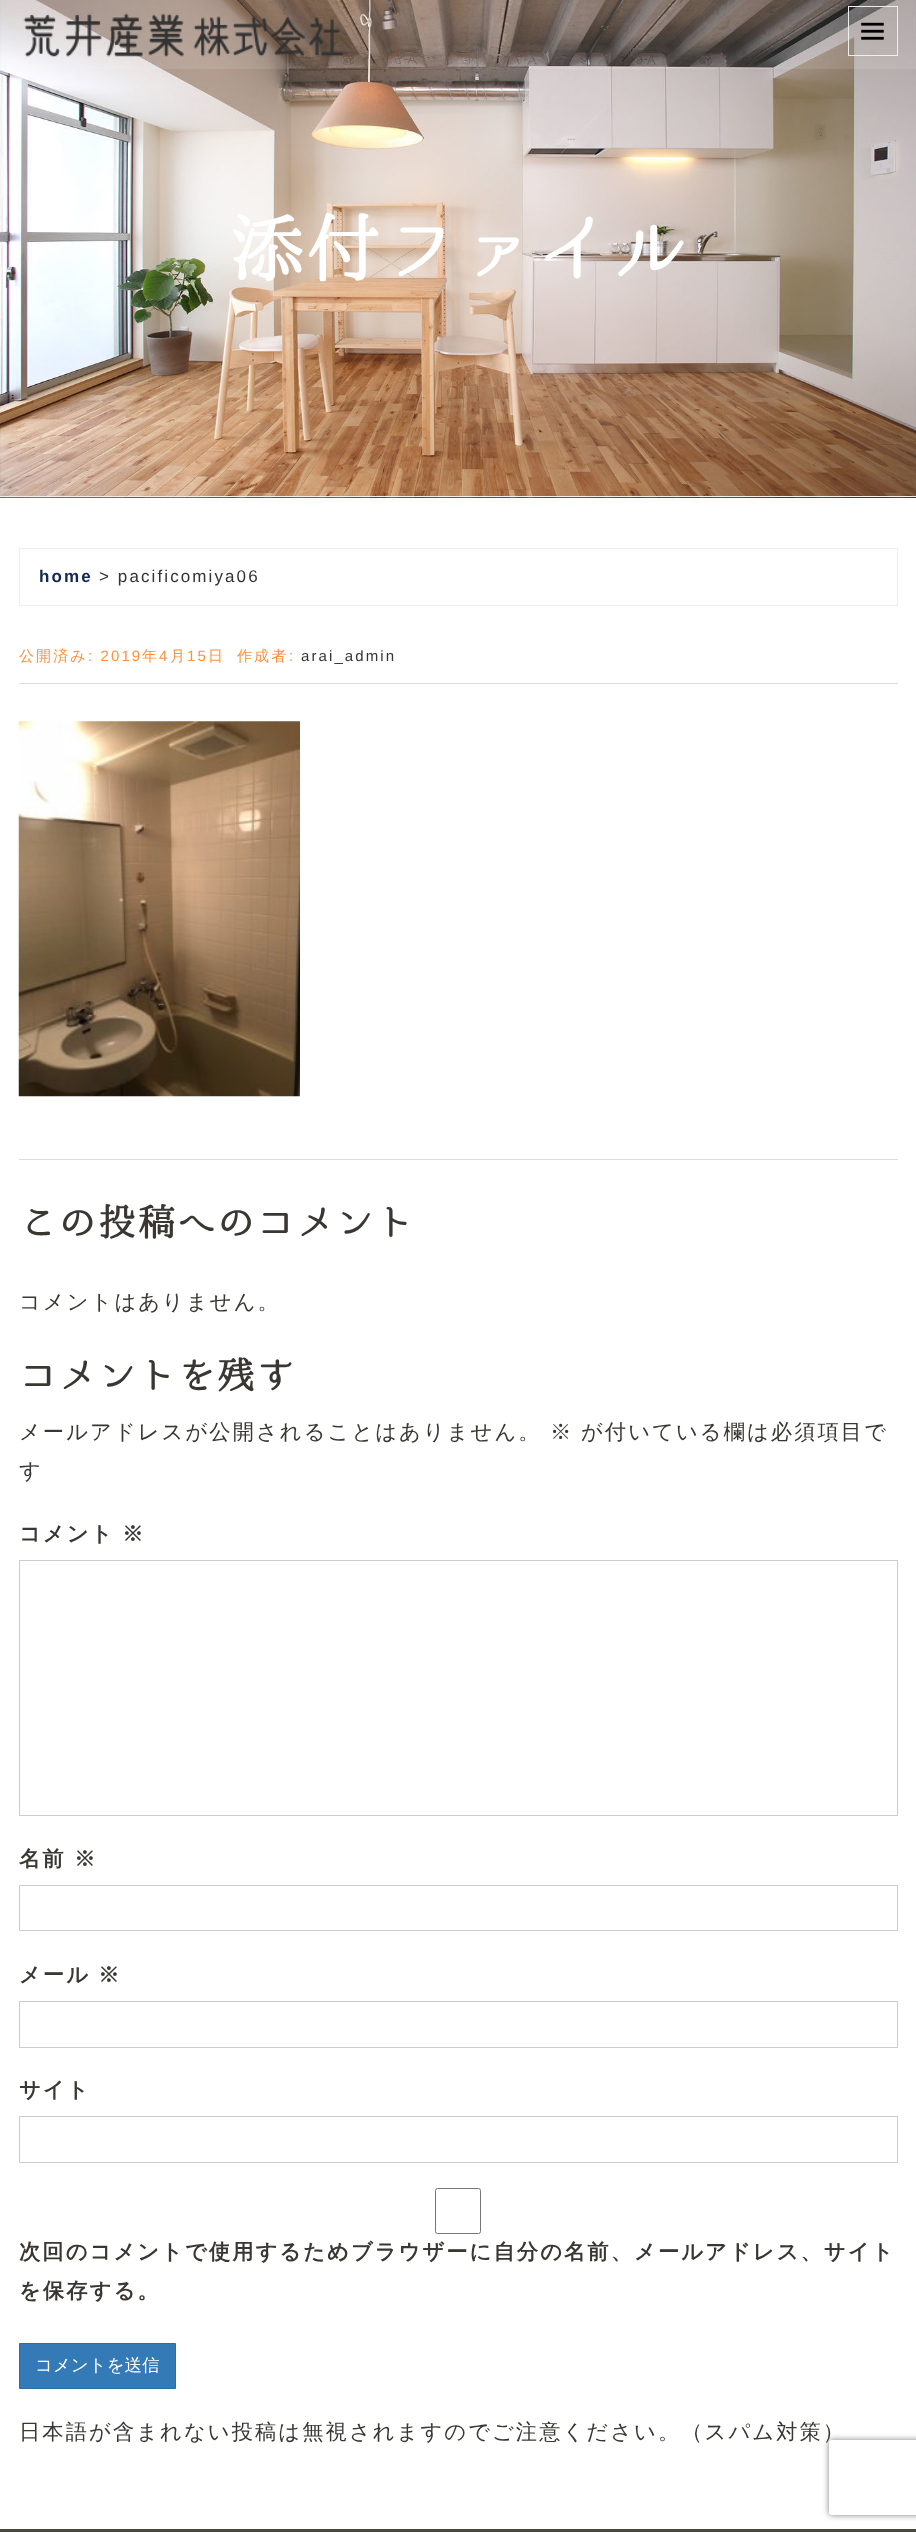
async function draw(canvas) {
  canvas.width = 916;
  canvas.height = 2532;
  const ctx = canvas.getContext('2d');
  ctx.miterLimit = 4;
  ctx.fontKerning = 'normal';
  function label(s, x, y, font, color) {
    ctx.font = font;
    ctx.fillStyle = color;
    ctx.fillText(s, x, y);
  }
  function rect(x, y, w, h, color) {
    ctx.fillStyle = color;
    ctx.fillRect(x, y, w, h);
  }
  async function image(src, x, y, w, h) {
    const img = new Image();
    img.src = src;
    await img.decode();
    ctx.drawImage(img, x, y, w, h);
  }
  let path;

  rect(0, 0, 916, 2532, '#fff');
  rect(0, 497, 916, 1, '#222');
  await image('assets/img3.png', 0, 0, 916, 498);
  rect(0, 0, 916, 69, '#ffffff1a');
  await image('assets/img1.png', 23, 13, 321, 44);
  ctx.strokeStyle = '#eee';
  ctx.strokeRect(848.5, 6.5, 49, 49);
  await image('assets/img2.png', 861, 22, 23, 18);
  rect(0, 496, 916, 1, '#eee');
  ctx.letterSpacing = '2.1px';
  label('添付ファイル', 229, 276, 'bold 74.5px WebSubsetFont', '#fff');
  ctx.strokeRect(19.5, 548.5, 878, 57);
  label('home', 39, 582, 'bold 17px Liberation Sans', '#132a50');
  label('> pacificomiya06', 99, 582, '17px Liberation Sans', '#333');
  rect(19, 683, 879, 1, '#ddd');
  label('公開済み', 19, 661, '500 15px WenQuanYi Zen Hei', '#ff903e');
  label(': 2019', 88, 661, '15px Liberation Sans', '#ff903e');
  label('年', 142, 661, '500 15px WenQuanYi Zen Hei', '#ff903e');
  label('4', 159, 661, '15px Liberation Sans', '#ff903e');
  label('月', 170, 661, '500 15px WenQuanYi Zen Hei', '#ff903e');
  label('15', 187, 661, '15px Liberation Sans', '#ff903e');
  label('日', 208, 661, '500 15px WenQuanYi Zen Hei', '#ff903e');
  label('作成者', 237, 661, '500 15px WenQuanYi Zen Hei', '#ff903e');
  label(':', 289, 661, '15px Liberation Sans', '#ff903e');
  label('arai_admin', 301, 661, '15px Liberation Sans', '#333');
  await image('assets/img4.png', 18, 721, 282, 376);
  rect(19, 1159, 879, 1, '#ddd');
  label('この投稿へのコメント', 19, 1236, 'bold 37.5px WebSubsetFont', '#3a3732');
  label('コメントはありません。', 19, 1309, '500 21.25px WenQuanYi Zen Hei', '#3a3732');
  label('コメントを残す', 19, 1389, 'bold 37.5px WebSubsetFont', '#3a3732');
  label('メールアドレスが公開されることはありません。', 19, 1439, '500 21.25px WenQuanYi Zen Hei', '#3a3732');
  label('※', 550, 1439, '500 21.25px WenQuanYi Zen Hei', '#3a3732');
  label('が付いている欄は必須項目で', 581, 1439, '500 21.25px WenQuanYi Zen Hei', '#3a3732');
  label('す', 19, 1478, '500 21.25px WenQuanYi Zen Hei', '#3a3732');
  label('コメント', 19, 1541, 'bold 21.25px WenQuanYi Zen Hei', '#3a3732');
  label('※', 122, 1541, 'bold 21.25px WenQuanYi Zen Hei', '#3a3732');
  ctx.strokeStyle = '#ccc';
  ctx.strokeRect(19.5, 1560.5, 878, 255);
  label('名前', 19, 1866, 'bold 21.25px WenQuanYi Zen Hei', '#3a3732');
  label('※', 74, 1866, 'bold 21.25px WenQuanYi Zen Hei', '#3a3732');
  ctx.strokeRect(19.5, 1885.5, 878, 45);
  label('メール', 19, 1982, 'bold 21.25px WenQuanYi Zen Hei', '#3a3732');
  label('※', 98, 1982, 'bold 21.25px WenQuanYi Zen Hei', '#3a3732');
  ctx.strokeRect(19.5, 2001.5, 878, 46);
  label('サイト', 19, 2097, 'bold 21.25px WenQuanYi Zen Hei', '#3a3732');
  ctx.strokeRect(19.5, 2116.5, 878, 46);
  ctx.beginPath();
  ctx.roundRect(435.5, 2188.5, 45, 45, 2);
  ctx.strokeStyle = '#767676';
  ctx.stroke();
  label('次回のコメントで使用するためブラウザーに自分の名前、メールアドレス、サイト', 19, 2259, 'bold 21.25px WenQuanYi Zen Hei', '#3a3732');
  label('を保存する。', 19, 2298, 'bold 21.25px WenQuanYi Zen Hei', '#3a3732');
  ctx.fillStyle = '#337ab7';
  ctx.beginPath();
  ctx.rect(19.5, 2343.5, 156, 45);
  ctx.fill();
  ctx.strokeStyle = '#2e6da4';
  ctx.stroke();
  ctx.letterSpacing = '0px';
  label('コメントを送信', 35, 2371, '500 17.5px WenQuanYi Zen Hei', '#fff');
  ctx.letterSpacing = '2.1px';
  label('日本語が含まれない投稿は無視されますのでご注意ください。（スパム対策）', 19, 2439, '500 21.25px WenQuanYi Zen Hei', '#3a3732');
  rect(0, 2529, 916, 3, '#4b4741');
  ctx.save();
  path = new Path2D('M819 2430H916V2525H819ZM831.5 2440H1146.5C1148 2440 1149 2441 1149 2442.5V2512.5C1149 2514 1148 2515 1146.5 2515H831.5C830 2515 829 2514 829 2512.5V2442.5C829 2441 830 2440 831.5 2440Z');
  ctx.clip(path, 'evenodd');
  ctx.fillStyle = '#808080';
  ctx.filter = 'blur(3px)';
  ctx.beginPath();
  ctx.roundRect(829, 2440, 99, 75, 2.5);
  ctx.fill();
  ctx.filter = 'none';
  ctx.restore();
}

draw(document.querySelector('canvas'));
